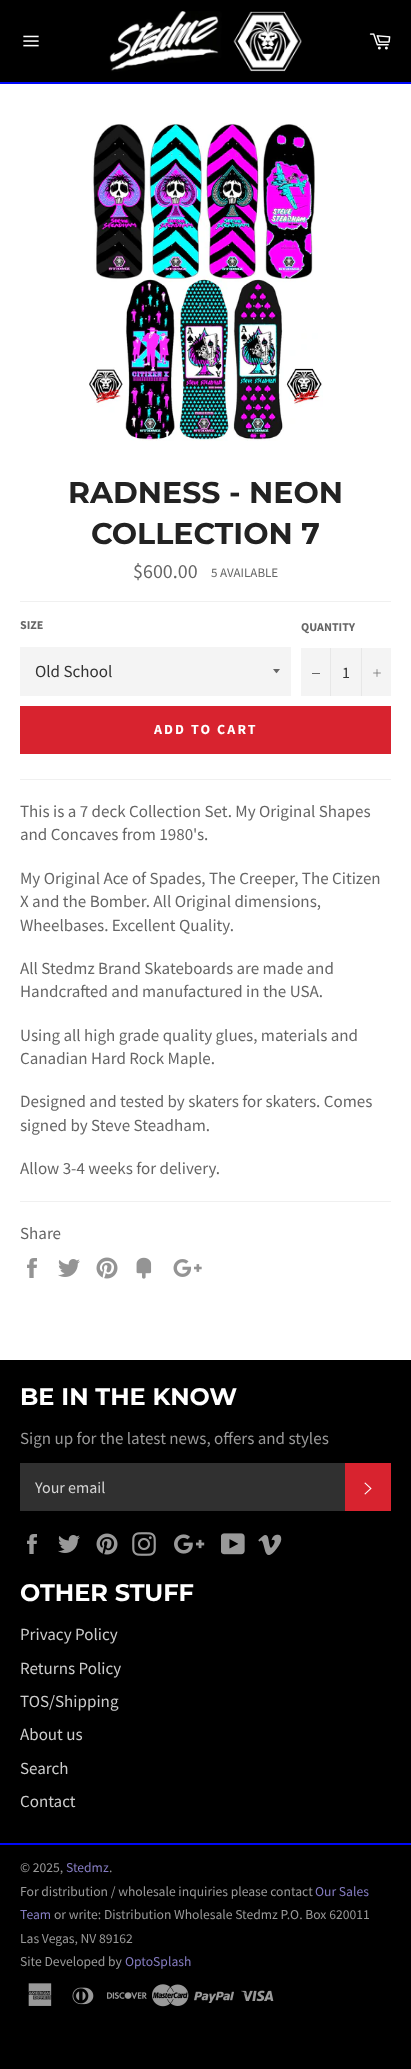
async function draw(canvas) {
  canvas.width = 411;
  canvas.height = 2069;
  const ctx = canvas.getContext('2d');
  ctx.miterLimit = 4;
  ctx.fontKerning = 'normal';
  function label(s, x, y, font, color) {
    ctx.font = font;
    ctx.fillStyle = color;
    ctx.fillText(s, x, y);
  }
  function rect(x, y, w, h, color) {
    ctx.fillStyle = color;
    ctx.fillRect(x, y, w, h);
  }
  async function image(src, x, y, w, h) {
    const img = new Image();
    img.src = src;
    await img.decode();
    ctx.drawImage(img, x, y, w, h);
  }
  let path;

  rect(0, 0, 411, 2069, '#000');
  rect(0, 84, 411, 1276, '#fff');
  await image('assets/img1.png', 23, 35, 16, 12);
  await image('assets/img2.png', 109, 11, 193, 61);
  await image('assets/img3.png', 369, 33, 22, 17);
  rect(0, 82, 411, 2, '#0008f9');
  await image('assets/img4.png', 89, 123, 234, 318);
  label('RADNESS - NEON', 68, 503, 'bold 30px Montserrat', '#222');
  label('COLLECTION 7', 91, 544, 'bold 30px Montserrat', '#222');
  label('$600.00', 133, 578, '20px Source Sans Pro', '#666');
  label('5 AVAILABLE', 211, 577, '13px Source Sans Pro', '#666');
  rect(20, 601, 371, 1, '#f0f0f0');
  label('SIZE', 20, 629, 'bold 12px Source Sans Pro', '#666');
  rect(20, 647, 271, 49, '#f4f4f4');
  ctx.fillStyle = '#666';
  path = new Path2D('M273 669C277.5 674.5 275.5 674.5 280 669Z');
  ctx.fill(path);
  label('Old School', 35, 677, '17px Source Sans Pro', '#333');
  label('QUANTITY', 301, 631, 'bold 12px Source Sans Pro', '#666');
  rect(301, 648, 90, 48, '#f4f4f4');
  rect(330, 648, 1, 48, '#e7e7e7');
  rect(312, 673, 8, 1, '#666');
  label('1', 342, 678, '16px Source Sans Pro', '#333');
  rect(361, 648, 1, 48, '#e7e7e7');
  await image('assets/img5.png', 373, 669, 8, 8);
  rect(20, 706, 371, 48, '#d8232f');
  ctx.letterSpacing = '2.1px';
  label('ADD TO CART', 154, 734, 'bold 14px Source Sans Pro', '#fff');
  rect(20, 779, 371, 1, '#f0f0f0');
  ctx.letterSpacing = '0px';
  label('This is a 7 deck Collection Set. My Original Shapes', 20, 817, '17px Source Sans Pro', '#666');
  label('and Concaves from 1980\'s.', 20, 840, '17px Source Sans Pro', '#666');
  label('My Original Ace of Spades, The Creeper, The Citizen', 20, 884, '17px Source Sans Pro', '#666');
  label('X and the Bomber. All Original dimensions,', 20, 907, '17px Source Sans Pro', '#666');
  label('Wheelbases. Excellent Quality.', 20, 931, '17px Source Sans Pro', '#666');
  label('All Stedmz Brand Skateboards are made and', 20, 974, '17px Source Sans Pro', '#666');
  label('Handcrafted and manufactured in the USA.', 20, 997, '17px Source Sans Pro', '#666');
  label('Using all high grade quality glues, materials and', 20, 1041, '17px Source Sans Pro', '#666');
  label('Canadian Hard Rock Maple.', 20, 1064, '17px Source Sans Pro', '#666');
  label('Designed and tested by skaters for skaters. Comes', 20, 1107, '17px Source Sans Pro', '#666');
  label('signed by Steve Steadham.', 20, 1131, '17px Source Sans Pro', '#666');
  label('Allow 3-4 weeks for delivery.', 20, 1174, '17px Source Sans Pro', '#666');
  rect(20, 1201, 371, 1, '#f0f0f0');
  label('Share', 20, 1239, '17px Source Sans Pro', '#666');
  await image('assets/img6.png', 27, 1258, 10, 20);
  await image('assets/img7.png', 58, 1259, 22, 18);
  await image('assets/img8.png', 96, 1257, 22, 22);
  await image('assets/img9.png', 136, 1257, 16, 22);
  await image('assets/img10.png', 173, 1259, 29, 18);
  label('BE IN THE KNOW', 20, 1405, 'bold 24px Montserrat', '#fff');
  label('Sign up for the latest news, offers and styles', 20, 1444, '17px Source Sans Pro', '#999');
  rect(20, 1463, 325, 48, '#303030');
  label('Your email', 35, 1493, '16px Source Sans Pro', '#d6d6d6');
  rect(345, 1463, 46, 48, '#d8232f');
  await image('assets/img11.png', 364, 1482, 8, 13);
  await image('assets/img12.png', 27, 1534, 10, 20);
  await image('assets/img13.png', 58, 1535, 22, 18);
  await image('assets/img14.png', 96, 1533, 22, 22);
  await image('assets/img15.png', 132, 1532, 24, 24);
  await image('assets/img16.png', 174, 1534, 31, 20);
  await image('assets/img17.png', 221, 1533, 24, 22);
  await image('assets/img18.png', 258, 1534, 24, 21);
  label('OTHER STUFF', 20, 1601, 'bold 24px Montserrat', '#fff');
  label('Privacy Policy', 20, 1640, '17px Source Sans Pro', '#ccc');
  label('Returns Policy', 20, 1674, '17px Source Sans Pro', '#ccc');
  label('TOS/Shipping', 20, 1707, '17px Source Sans Pro', '#ccc');
  label('About us', 20, 1740, '17px Source Sans Pro', '#ccc');
  label('Search', 20, 1774, '17px Source Sans Pro', '#ccc');
  label('Contact', 20, 1807, '17px Source Sans Pro', '#ccc');
  rect(0, 1843, 411, 2, '#0008f9');
  label('© 2025,', 20, 1872, '13.6px Source Sans Pro', '#999');
  label('Stedmz', 66, 1872, '13.6px Source Sans Pro', '#867dc3');
  label('.', 109, 1872, '13.6px Source Sans Pro', '#999');
  label('For distribution / wholesale inquiries please contact', 20, 1896, '13.6px Source Sans Pro', '#999');
  label('Our Sales', 315, 1896, '13.6px Source Sans Pro', '#867dc3');
  label('Team', 20, 1919, '13.6px Source Sans Pro', '#867dc3');
  label('or write: Distribution Wholesale Stedmz P.O. Box 620011', 54, 1919, '13.6px Source Sans Pro', '#999');
  label('Las Vegas, NV 89162', 20, 1943, '13.6px Source Sans Pro', '#999');
  label('Site Developed by', 20, 1966, '13.6px Source Sans Pro', '#999');
  label('OptoSplash', 125, 1966, '13.6px Source Sans Pro', '#867dc3');
  await image('assets/img19.png', 28, 1983, 24, 23);
  await image('assets/img20.png', 72, 1987, 22, 18);
  await image('assets/img21.png', 107, 1992, 40, 7);
  await image('assets/img22.png', 152, 1984, 37, 23);
  await image('assets/img23.png', 194, 1991, 40, 12);
  await image('assets/img24.png', 241, 1990, 33, 12);
}

draw(document.querySelector('canvas'));
